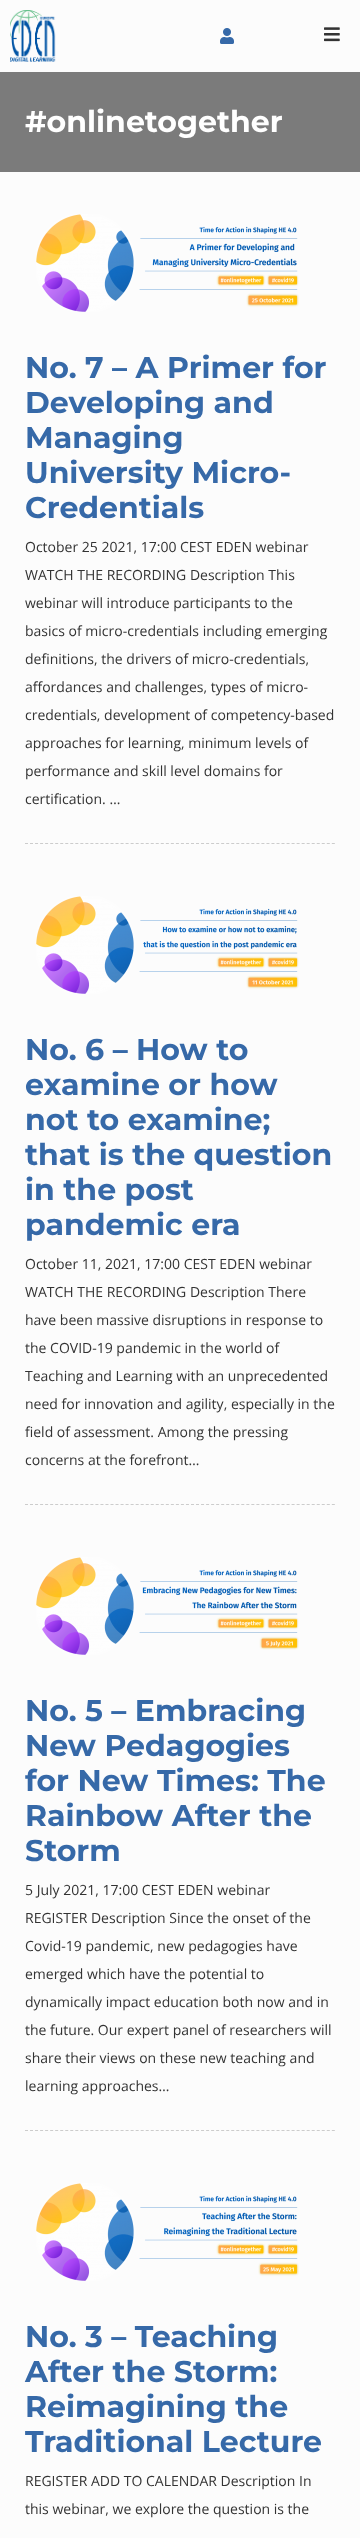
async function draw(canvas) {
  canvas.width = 360;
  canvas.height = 2538;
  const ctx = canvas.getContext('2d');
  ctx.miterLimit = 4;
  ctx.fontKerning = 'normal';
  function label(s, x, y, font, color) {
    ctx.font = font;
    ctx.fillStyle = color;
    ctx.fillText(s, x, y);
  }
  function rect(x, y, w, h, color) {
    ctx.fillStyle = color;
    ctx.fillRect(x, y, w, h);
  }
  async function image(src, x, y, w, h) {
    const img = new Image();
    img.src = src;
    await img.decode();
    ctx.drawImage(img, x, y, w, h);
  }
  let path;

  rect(0, 0, 360, 2538, '#fcfcfc');
  await image('assets/img1.png', 10, 10, 46, 52);
  await image('assets/img2.png', 220, 28, 14, 16);
  await image('assets/img3.png', 324, 27, 16, 15);
  rect(0, 72, 360, 100, '#7b7b7b');
  label('#onlinetogether', 25, 132, 'bold 30px Montserrat', '#fff');
  path = new Path2D('M25 843.5H335');
  ctx.strokeStyle = '#ccc';
  ctx.setLineDash([3, 2.03]);
  ctx.stroke(path);
  await image('assets/img4.png', 36, 214, 263, 98);
  label('No. 7 – A Primer for', 25, 378, 'bold 30px Montserrat', '#3669a8');
  label('Developing and', 25, 413, 'bold 30px Montserrat', '#3669a8');
  label('Managing', 25, 448, 'bold 30px Montserrat', '#3669a8');
  label('University Micro-', 25, 483, 'bold 30px Montserrat', '#3669a8');
  label('Credentials', 25, 518, 'bold 30px Montserrat', '#3669a8');
  label('October 25 2021, 17:00 CEST EDEN webinar', 25, 552, '14px Open Sans', '#333');
  label('WATCH THE RECORDING Description This', 25, 580, '14px Open Sans', '#333');
  label('webinar will introduce participants to the', 25, 608, '14px Open Sans', '#333');
  label('basics of micro-credentials including emerging', 25, 636, '14px Open Sans', '#333');
  label('definitions, the drivers of micro-credentials,', 25, 664, '14px Open Sans', '#333');
  label('affordances and challenges, types of micro-', 25, 692, '14px Open Sans', '#333');
  label('credentials, development of competency-based', 25, 720, '14px Open Sans', '#333');
  label('approaches for learning, minimum levels of', 25, 748, '14px Open Sans', '#333');
  label('performance and skill level domains for', 25, 776, '14px Open Sans', '#333');
  label('certification. …', 25, 804, '14px Open Sans', '#333');
  path = new Path2D('M25 1504.5H335');
  ctx.stroke(path);
  await image('assets/img5.png', 36, 896, 263, 98);
  label('No. 6 – How to', 25, 1060, 'bold 30px Montserrat', '#3669a8');
  label('examine or how', 25, 1095, 'bold 30px Montserrat', '#3669a8');
  label('not to examine;', 25, 1130, 'bold 30px Montserrat', '#3669a8');
  label('that is the question', 25, 1165, 'bold 30px Montserrat', '#3669a8');
  label('in the post', 25, 1200, 'bold 30px Montserrat', '#3669a8');
  label('pandemic era', 25, 1235, 'bold 30px Montserrat', '#3669a8');
  label('October 11, 2021, 17:00 CEST EDEN webinar', 25, 1269, '14px Open Sans', '#333');
  label('WATCH THE RECORDING Description There', 25, 1297, '14px Open Sans', '#333');
  label('have been massive disruptions in response to', 25, 1325, '14px Open Sans', '#333');
  label('the COVID-19 pandemic in the world of', 25, 1353, '14px Open Sans', '#333');
  label('Teaching and Learning with an unprecedented', 25, 1381, '14px Open Sans', '#333');
  label('need for innovation and agility, especially in the', 25, 1409, '14px Open Sans', '#333');
  label('field of assessment. Among the pressing', 25, 1437, '14px Open Sans', '#333');
  label('concerns at the forefront…', 25, 1465, '14px Open Sans', '#333');
  path = new Path2D('M25 2130.5H335');
  ctx.stroke(path);
  await image('assets/img6.png', 36, 1557, 263, 98);
  label('No. 5 – Embracing', 25, 1721, 'bold 30px Montserrat', '#3669a8');
  label('New Pedagogies', 25, 1756, 'bold 30px Montserrat', '#3669a8');
  label('for New Times: The', 25, 1791, 'bold 30px Montserrat', '#3669a8');
  label('Rainbow After the', 25, 1826, 'bold 30px Montserrat', '#3669a8');
  label('Storm', 25, 1861, 'bold 30px Montserrat', '#3669a8');
  label('5 July 2021, 17:00 CEST EDEN webinar', 25, 1895, '14px Open Sans', '#333');
  label('REGISTER Description Since the onset of the', 25, 1923, '14px Open Sans', '#333');
  label('Covid-19 pandemic, new pedagogies have', 25, 1951, '14px Open Sans', '#333');
  label('emerged which have the potential to', 25, 1979, '14px Open Sans', '#333');
  label('dynamically impact education both now and in', 25, 2007, '14px Open Sans', '#333');
  label('the future. Our expert panel of researchers will', 25, 2035, '14px Open Sans', '#333');
  label('share their views on these new teaching and', 25, 2063, '14px Open Sans', '#333');
  label('learning approaches…', 25, 2091, '14px Open Sans', '#333');
  await image('assets/img7.png', 36, 2183, 263, 98);
  label('No. 3 – Teaching', 25, 2347, 'bold 30px Montserrat', '#3669a8');
  label('After the Storm:', 25, 2382, 'bold 30px Montserrat', '#3669a8');
  label('Reimagining the', 25, 2417, 'bold 30px Montserrat', '#3669a8');
  label('Traditional Lecture', 25, 2452, 'bold 30px Montserrat', '#3669a8');
  label('REGISTER ADD TO CALENDAR Description In', 25, 2486, '14px Open Sans', '#333');
  label('this webinar, we explore the question is the', 25, 2514, '14px Open Sans', '#333');
}

draw(document.querySelector('canvas'));
